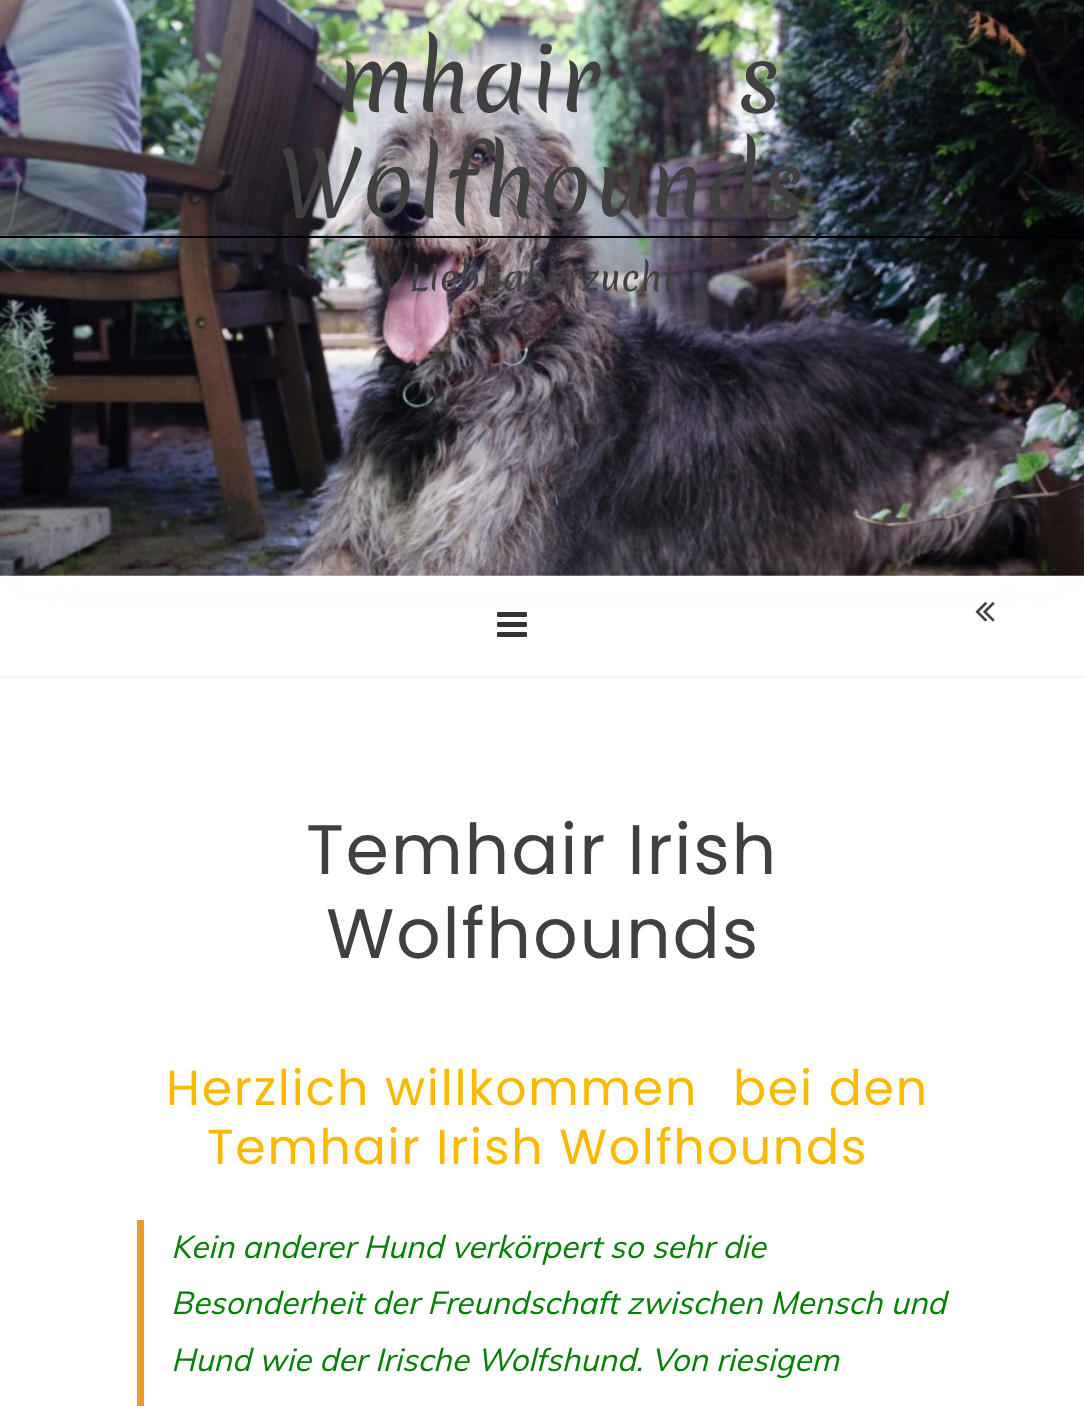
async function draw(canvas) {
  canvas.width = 1084;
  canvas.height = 1406;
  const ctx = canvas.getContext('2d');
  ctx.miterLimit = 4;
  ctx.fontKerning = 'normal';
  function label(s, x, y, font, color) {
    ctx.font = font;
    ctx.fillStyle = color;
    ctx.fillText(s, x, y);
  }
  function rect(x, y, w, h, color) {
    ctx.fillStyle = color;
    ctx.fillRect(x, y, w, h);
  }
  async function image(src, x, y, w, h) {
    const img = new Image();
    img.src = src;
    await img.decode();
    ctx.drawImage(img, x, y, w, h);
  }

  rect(0, 0, 1084, 1406, '#fff');
  ctx.fillStyle = '#eee';
  ctx.filter = 'blur(22px)';
  ctx.beginPath();
  ctx.rect(26, 44, 1033, 523);
  ctx.fill();
  ctx.filter = 'none';
  await image('assets/img1.png', 0, 0, 1084, 576);
  rect(0, 236, 1084, 2, '#000');
  ctx.letterSpacing = '1.75px';
  label('mhair', 336, 112, '87.5px Merienda', '#404040');
  label('s', 737, 112, '87.5px Merienda', '#404040');
  label('Wolfhounds', 278, 217, '87.5px Merienda', '#404040');
  ctx.letterSpacing = '0px';
  label('Liebhaberzucht', 409, 291, '35px Merienda', '#404040');
  rect(24, 576, 1037, 14, '#fff');
  rect(0, 676, 1084, 2, '#f5f5f5');
  await image('assets/img2.png', 497, 612, 30, 25);
  await image('assets/img3.png', 975, 602, 20, 20);
  ctx.letterSpacing = '1.75px';
  label('Temhair Irish', 306, 874, '70px Poppins', '#404040');
  label('Wolfhounds', 326, 958, '70px Poppins', '#404040');
  label('Herzlich willkommen', 166, 1105, '49px Poppins', '#fcb900');
  label('bei den', 733, 1105, '49px Poppins', '#fcb900');
  label('Temhair Irish Wolfhounds', 207, 1164, '49px Poppins', '#fcb900');
  rect(137, 1220, 7, 186, '#e89a35');
  ctx.letterSpacing = '0px';
  label('Kein anderer Hund verkörpert so sehr die', 171, 1258, 'italic 31.5px Muli', '#008000');
  label('Besonderheit der Freundschaft zwischen Mensch und', 171, 1314, 'italic 31.5px Muli', '#008000');
  label('Hund wie der Irische Wolfshund. Von riesigem', 171, 1371, 'italic 31.5px Muli', '#008000');
}

draw(document.querySelector('canvas'));
